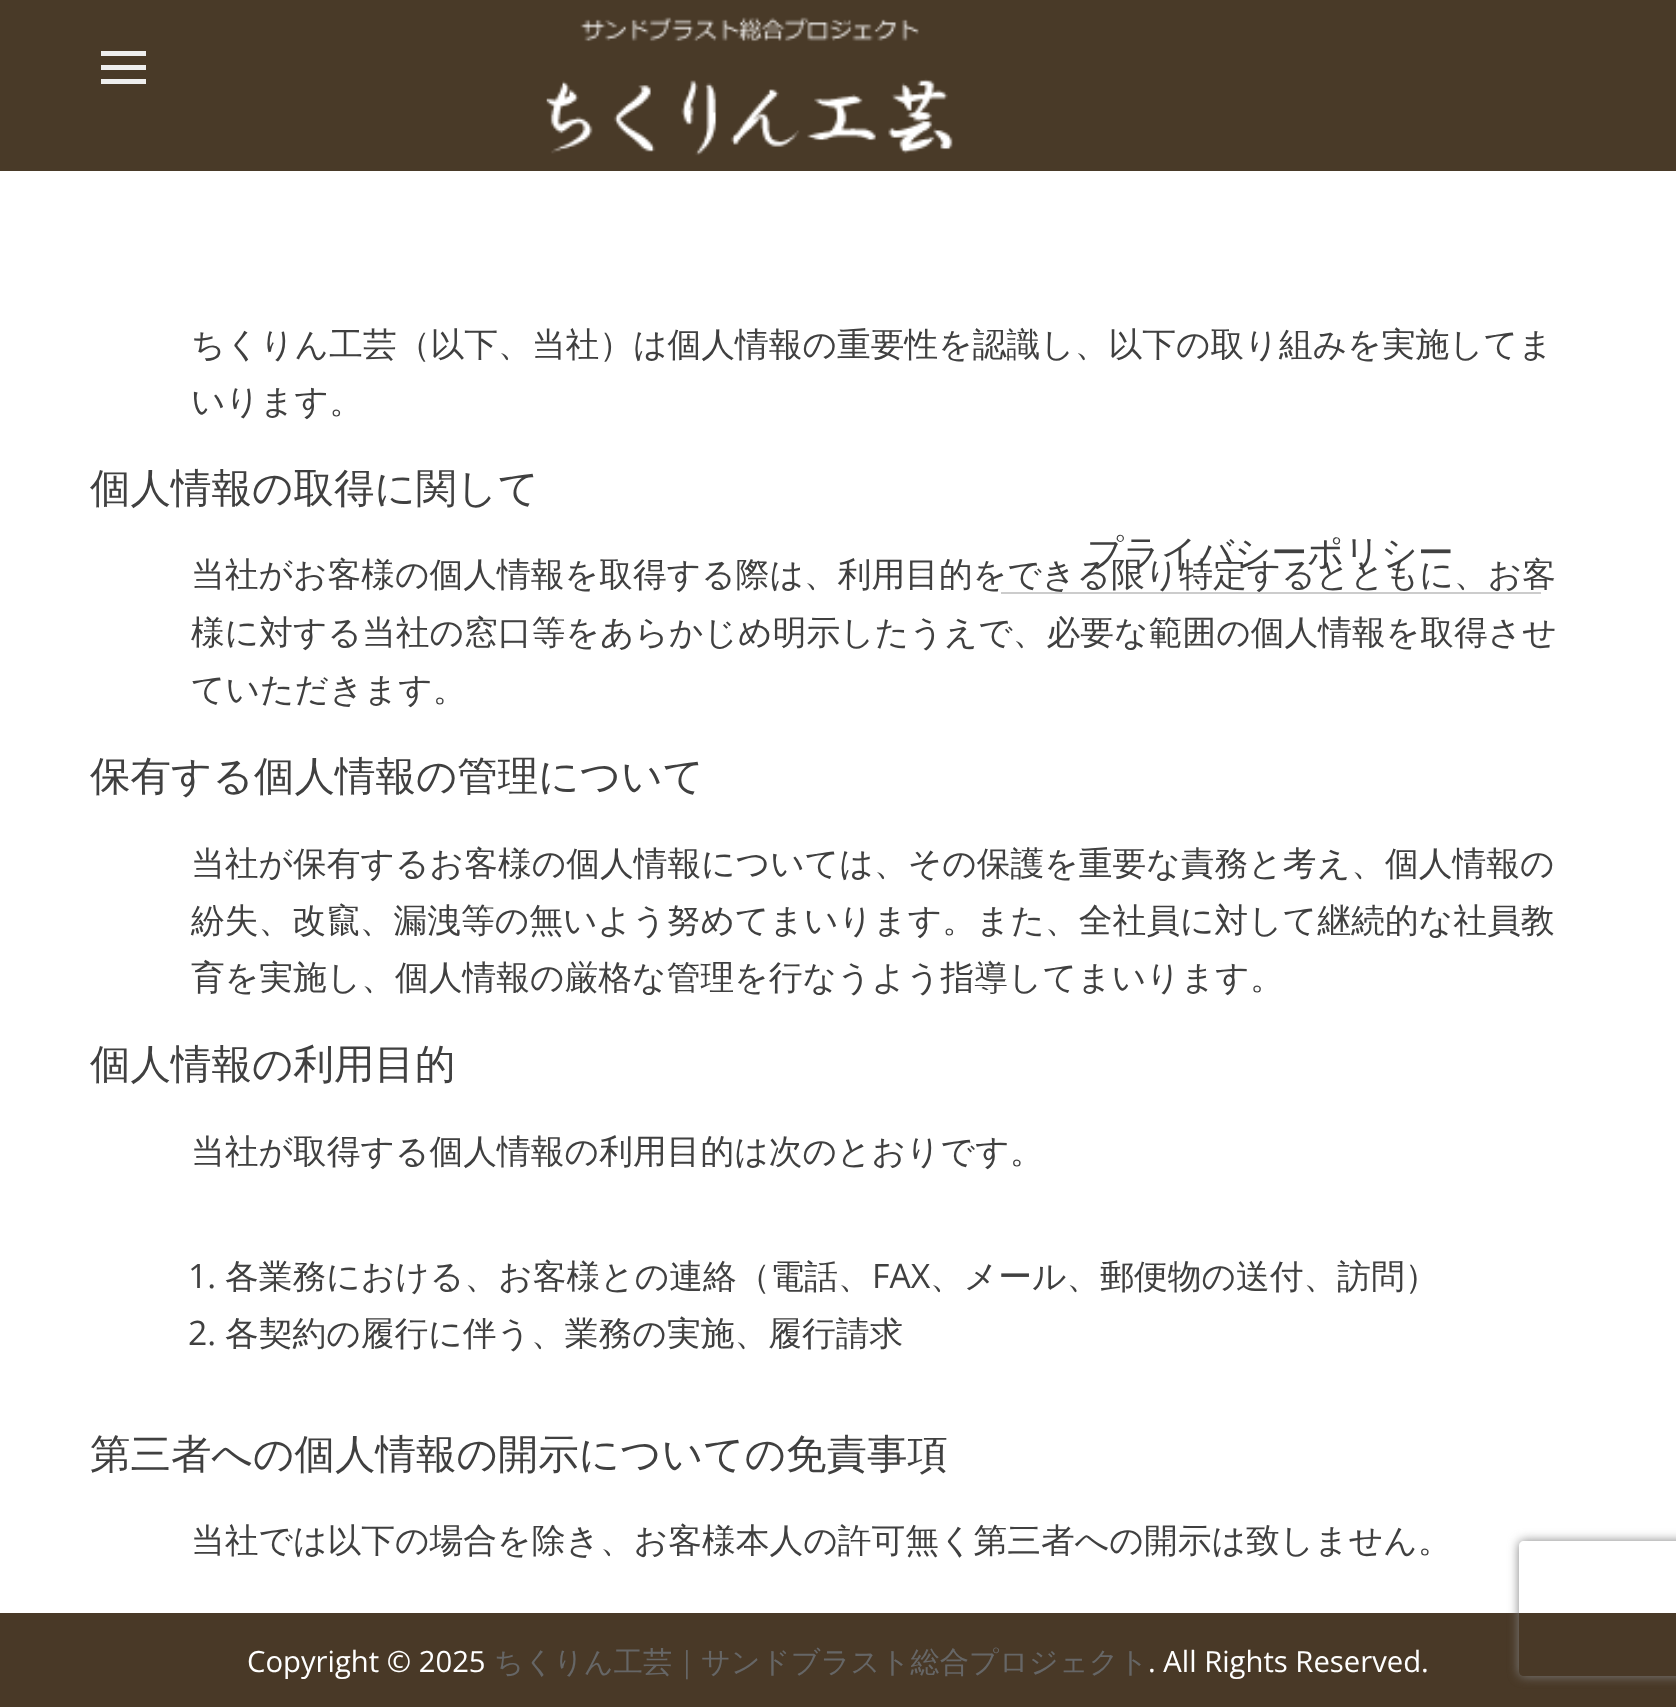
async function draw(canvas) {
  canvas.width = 1676;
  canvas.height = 1707;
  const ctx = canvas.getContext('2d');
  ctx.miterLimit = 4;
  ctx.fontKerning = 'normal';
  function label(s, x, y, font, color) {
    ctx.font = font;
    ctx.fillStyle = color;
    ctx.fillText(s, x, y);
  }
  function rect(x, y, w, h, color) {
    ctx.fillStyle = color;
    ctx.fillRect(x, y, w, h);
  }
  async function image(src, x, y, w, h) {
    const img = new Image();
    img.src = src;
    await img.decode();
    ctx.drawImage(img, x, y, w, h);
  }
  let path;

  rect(0, 0, 1676, 1707, '#fff');
  rect(0, 0, 1676, 171, '#493a28');
  ctx.fillStyle = '#eee';
  path = new Path2D('M101 84V79H146V84ZM101 51H146V56H101ZM101 70V65H146V70Z');
  ctx.fill(path);
  await image('assets/img1.png', 546, 17, 407, 139);
  label('ちくりん工芸（以下、当社）は個人情報の重要性を認識し、以下の取り組みを実施してま', 191, 356, '500 33.75px WenQuanYi Zen Hei', '#404040');
  label('いります。', 191, 413, '500 33.75px WenQuanYi Zen Hei', '#404040');
  label('個人情報の取得に関して', 90, 502, '500 40.5px WenQuanYi Zen Hei', '#404040');
  label('当社がお客様の個人情報を取得する際は、利用目的をできる限り特定するとともに、お客', 191, 586, '500 33.75px WenQuanYi Zen Hei', '#404040');
  label('様に対する当社の窓口等をあらかじめ明示したうえで、必要な範囲の個人情報を取得させ', 191, 644, '500 33.75px WenQuanYi Zen Hei', '#404040');
  label('ていただきます。', 191, 701, '500 33.75px WenQuanYi Zen Hei', '#404040');
  label('保有する個人情報の管理について', 90, 790, '500 40.5px WenQuanYi Zen Hei', '#404040');
  label('当社が保有するお客様の個人情報については、その保護を重要な責務と考え、個人情報の', 191, 875, '500 33.75px WenQuanYi Zen Hei', '#404040');
  label('紛失、改竄、漏洩等の無いよう努めてまいります。また、全社員に対して継続的な社員教', 191, 932, '500 33.75px WenQuanYi Zen Hei', '#404040');
  label('育を実施し、個人情報の厳格な管理を行なうよう指導してまいります。', 191, 989, '500 33.75px WenQuanYi Zen Hei', '#404040');
  label('個人情報の利用目的', 90, 1078, '500 40.5px WenQuanYi Zen Hei', '#404040');
  label('当社が取得する個人情報の利用目的は次のとおりです。', 191, 1163, '500 33.75px WenQuanYi Zen Hei', '#404040');
  label('1.', 188, 1288, '33.75px Open Sans', '#404040');
  label('各業務における、お客様との連絡（電話、', 225, 1288, '500 33.75px WenQuanYi Zen Hei', '#404040');
  label('FAX', 872, 1288, '33.75px Open Sans', '#404040');
  label('、メール、郵便物の送付、訪問）', 930, 1288, '500 33.75px WenQuanYi Zen Hei', '#404040');
  label('2.', 188, 1345, '33.75px Open Sans', '#404040');
  label('各契約の履行に伴う、業務の実施、履行請求', 225, 1345, '500 33.75px WenQuanYi Zen Hei', '#404040');
  label('第三者への個人情報の開示についての免責事項', 90, 1468, '500 40.5px WenQuanYi Zen Hei', '#404040');
  label('当社では以下の場合を除き、お客様本人の許可無く第三者への開示は致しません。', 191, 1552, '500 33.75px WenQuanYi Zen Hei', '#404040');
  rect(1001, 592, 540, 2, '#ccc');
  label('プライバシーポリシー', 1087, 565, '500 36px WenQuanYi Zen Hei', '#404040');
  rect(0, 1613, 1676, 94, '#493927');
  label('Copyright © 2025', 247, 1672, '29.25px Open Sans', '#fff');
  label('ちくりん工芸｜サンドブラスト総合プロジェクト', 494, 1672, '500 29.25px WenQuanYi Zen Hei', '#666');
  label('. All Rights Reserved.', 1148, 1672, '29.25px Open Sans', '#fff');
  ctx.save();
  path = new Path2D('M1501 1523H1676V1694H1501ZM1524 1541H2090C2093 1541 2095 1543 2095 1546V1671C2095 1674 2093 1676 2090 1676H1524C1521 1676 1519 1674 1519 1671V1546C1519 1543 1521 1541 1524 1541Z');
  ctx.clip(path, 'evenodd');
  ctx.fillStyle = '#808080';
  ctx.filter = 'blur(5.5px)';
  ctx.beginPath();
  ctx.roundRect(1519, 1541, 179, 135, 5);
  ctx.fill();
  ctx.filter = 'none';
  ctx.restore();
}

draw(document.querySelector('canvas'));
